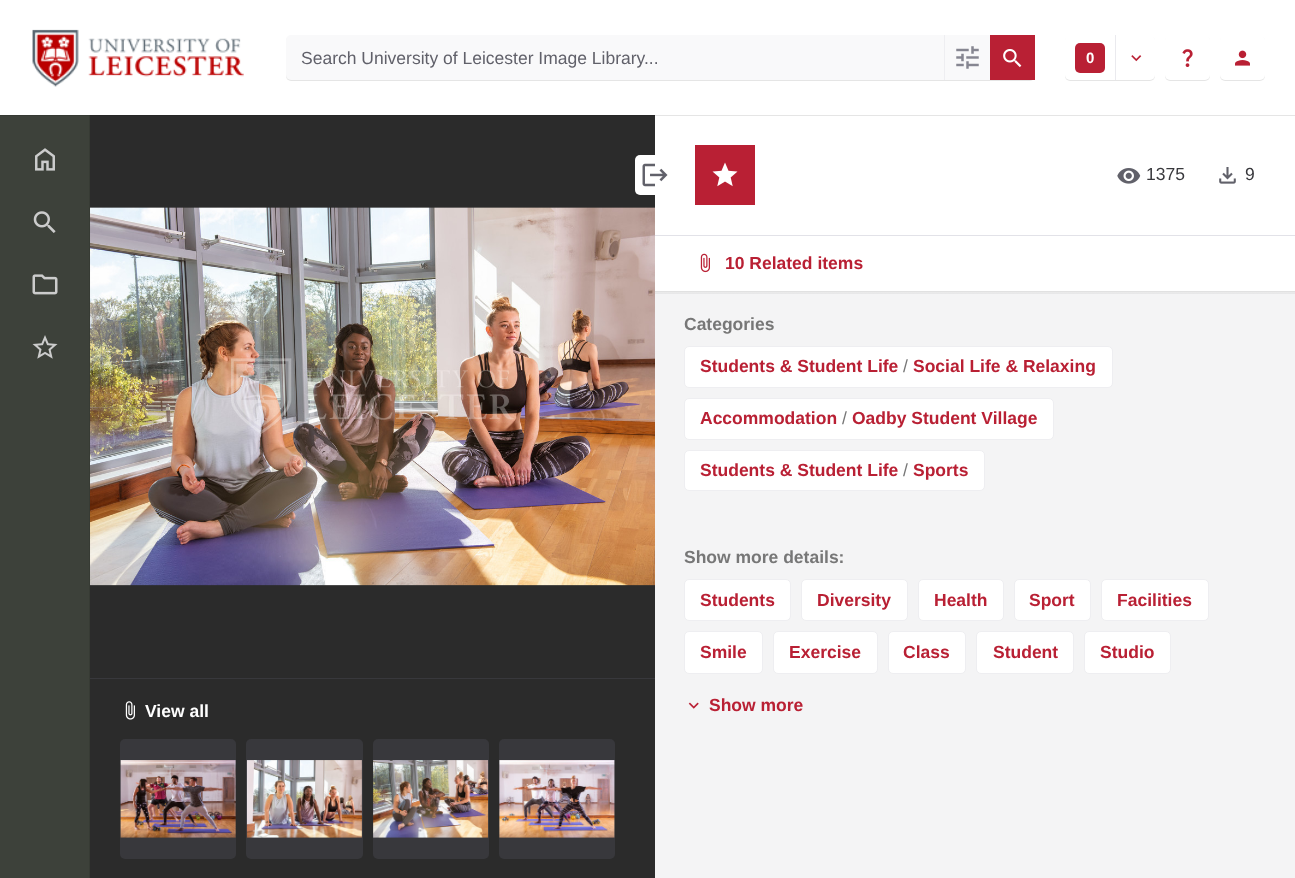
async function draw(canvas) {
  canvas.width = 1295;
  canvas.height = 878;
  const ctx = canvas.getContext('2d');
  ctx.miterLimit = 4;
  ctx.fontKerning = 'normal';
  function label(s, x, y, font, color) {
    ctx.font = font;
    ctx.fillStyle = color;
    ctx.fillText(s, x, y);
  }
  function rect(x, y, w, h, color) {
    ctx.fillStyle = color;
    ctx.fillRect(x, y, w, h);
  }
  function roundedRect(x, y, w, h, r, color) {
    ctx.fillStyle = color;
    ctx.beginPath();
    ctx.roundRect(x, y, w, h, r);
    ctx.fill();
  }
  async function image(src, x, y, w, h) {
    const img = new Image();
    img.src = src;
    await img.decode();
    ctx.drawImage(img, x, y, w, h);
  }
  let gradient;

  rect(0, 0, 1295, 878, '#fff');
  rect(0, 115, 89, 763, '#3d413a');
  rect(89, 115, 1, 763, '#373b34');
  rect(90, 115, 565, 763, '#2b2b2b');
  ctx.save();
  ctx.beginPath();
  ctx.rect(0, 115, 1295, 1);
  ctx.clip();
  ctx.fillStyle = '#0000001a';
  ctx.filter = 'blur(0.5px)';
  ctx.beginPath();
  ctx.rect(0, 1, 1295, 115);
  ctx.fill();
  ctx.filter = 'none';
  ctx.restore();
  await image('assets/img1.png', 32, 29, 212, 58);
  ctx.fillStyle = '#0000001a';
  ctx.filter = 'blur(0.5px)';
  ctx.beginPath();
  ctx.roundRect(286, 36, 749, 45, 5);
  ctx.fill();
  ctx.filter = 'none';
  ctx.fillStyle = '#f9f9fa';
  ctx.beginPath();
  ctx.roundRect(286, 35, 658, 45, [5, 0, 0, 5]);
  ctx.fill();
  label('Search University of Leicester Image Library...', 301, 64, '17.5px Liberation Sans', '#61616a');
  rect(945, 35, 45, 45, '#f9f9fa');
  rect(944, 35, 1, 45, '#eeeef1');
  await image('assets/img2.png', 956, 46, 23, 23);
  rect(990, 35, 45, 45, '#b92034');
  await image('assets/img3.png', 1003, 49, 19, 19);
  ctx.fillStyle = '#0000001a';
  ctx.filter = 'blur(0.5px)';
  ctx.beginPath();
  ctx.roundRect(1065, 36, 90, 45, 5);
  ctx.fill();
  ctx.filter = 'none';
  ctx.fillStyle = '#fff';
  ctx.beginPath();
  ctx.roundRect(1065, 35, 50, 45, [5, 0, 0, 5]);
  ctx.fill();
  roundedRect(1075, 43, 30, 30, 5, '#b92034');
  label('0', 1086, 63, 'bold 15px Liberation Sans', '#fff');
  ctx.beginPath();
  ctx.roundRect(1115, 35, 40, 45, [0, 5, 5, 0]);
  ctx.fill();
  rect(1115, 35, 1, 45, '#eaeaee');
  await image('assets/img4.png', 1131, 55, 11, 7);
  ctx.fillStyle = '#0000001a';
  ctx.filter = 'blur(0.5px)';
  ctx.beginPath();
  ctx.roundRect(1165, 36, 45, 45, 5);
  ctx.fill();
  ctx.filter = 'none';
  roundedRect(1165, 35, 45, 45, 5, '#fff');
  await image('assets/img5.png', 1182, 49, 11, 18);
  ctx.fillStyle = '#0000001a';
  ctx.filter = 'blur(0.5px)';
  ctx.beginPath();
  ctx.roundRect(1220, 36, 45, 45, 5);
  ctx.fill();
  ctx.filter = 'none';
  roundedRect(1220, 35, 45, 45, 5, '#fff');
  await image('assets/img6.png', 1235, 50, 15, 16);
  await image('assets/img7.png', 35, 148, 20, 23);
  await image('assets/img8.png', 33, 211, 23, 22);
  await image('assets/img9.png', 32, 274, 26, 21);
  await image('assets/img10.png', 32, 335, 26, 24);
  await image('assets/img11.png', 90, 207, 565, 379);
  rect(90, 678, 565, 1, '#38383c');
  await image('assets/img12.png', 125, 701, 10, 19);
  label('View all', 145, 717, 'bold 17.5px Liberation Sans', '#fff');
  roundedRect(120, 739, 116, 120, 5, '#38383c');
  await image('assets/img13.png', 120, 760, 116, 78);
  roundedRect(246, 739, 117, 120, 5, '#38383c');
  await image('assets/img14.png', 246, 760, 116, 78);
  roundedRect(373, 739, 116, 120, 5, '#38383c');
  await image('assets/img15.png', 373, 760, 116, 78);
  roundedRect(499, 739, 116, 120, 5, '#38383c');
  await image('assets/img16.png', 499, 760, 116, 78);
  roundedRect(635, 155, 40, 40, 5, '#fff');
  await image('assets/img17.png', 642, 163, 26, 24);
  rect(695, 145, 60, 60, '#b92034');
  await image('assets/img18.png', 712, 162, 26, 25);
  await image('assets/img19.png', 1117, 168, 24, 16);
  label('1375', 1146, 180, '17.5px Liberation Sans', '#38383c');
  await image('assets/img20.png', 1219, 167, 17, 17);
  label('9', 1245, 180, '17.5px Liberation Sans', '#38383c');
  rect(655, 235, 640, 1, '#e2e2e8');
  await image('assets/img21.png', 700, 253, 10, 20);
  label('10 Related items', 725, 269, 'bold 17.5px Liberation Sans', '#b92034');
  rect(655, 293, 640, 585, '#f4f4f5');
  gradient = ctx.createLinearGradient(975, 291, 975, 295);
  gradient.addColorStop(0, '#17171c26');
  gradient.addColorStop(1, '#17171c00');
  ctx.fillStyle = gradient;
  ctx.fillRect(655, 291, 640, 3);
  label('Categories', 684, 330, 'bold 17.5px Liberation Sans', '#777');
  ctx.fillStyle = '#fff';
  ctx.beginPath();
  ctx.roundRect(684.5, 346.5, 428, 41, 4.5);
  ctx.fill();
  ctx.strokeStyle = '#eeeef1';
  ctx.stroke();
  label('Students & Student Life', 700, 372, 'bold 17.5px Liberation Sans', '#b92034');
  label('/', 903, 372, '17.5px Liberation Sans', '#777');
  label('Social Life & Relaxing', 913, 372, 'bold 17.5px Liberation Sans', '#b92034');
  ctx.fillStyle = '#fff';
  ctx.beginPath();
  ctx.roundRect(684.5, 398.5, 369, 41, 4.5);
  ctx.fill();
  ctx.stroke();
  label('Accommodation', 700, 424, 'bold 17.5px Liberation Sans', '#b92034');
  label('/', 842, 424, '17.5px Liberation Sans', '#777');
  label('Oadby Student Village', 852, 424, 'bold 17.5px Liberation Sans', '#b92034');
  ctx.fillStyle = '#fff';
  ctx.beginPath();
  ctx.roundRect(684.5, 450.5, 300, 40, 4.5);
  ctx.fill();
  ctx.stroke();
  label('Students & Student Life', 700, 476, 'bold 17.5px Liberation Sans', '#b92034');
  label('/', 903, 476, '17.5px Liberation Sans', '#777');
  label('Sports', 913, 476, 'bold 17.5px Liberation Sans', '#b92034');
  label('Show more details:', 684, 563, 'bold 17.5px Liberation Sans', '#777');
  ctx.fillStyle = '#fff';
  ctx.beginPath();
  ctx.roundRect(684.5, 579.5, 106, 41, 4.5);
  ctx.fill();
  ctx.stroke();
  label('Students', 700, 606, 'bold 17.5px Liberation Sans', '#b92034');
  ctx.fillStyle = '#fff';
  ctx.beginPath();
  ctx.roundRect(801.5, 579.5, 106, 41, 4.5);
  ctx.fill();
  ctx.stroke();
  label('Diversity', 817, 606, 'bold 17.5px Liberation Sans', '#b92034');
  ctx.fillStyle = '#fff';
  ctx.beginPath();
  ctx.roundRect(918.5, 579.5, 85, 41, 4.5);
  ctx.fill();
  ctx.stroke();
  label('Health', 934, 606, 'bold 17.5px Liberation Sans', '#b92034');
  ctx.fillStyle = '#fff';
  ctx.beginPath();
  ctx.roundRect(1014.5, 579.5, 76, 41, 4.5);
  ctx.fill();
  ctx.stroke();
  label('Sport', 1029, 606, 'bold 17.5px Liberation Sans', '#b92034');
  ctx.fillStyle = '#fff';
  ctx.beginPath();
  ctx.roundRect(1101.5, 579.5, 107, 41, 4.5);
  ctx.fill();
  ctx.stroke();
  label('Facilities', 1117, 606, 'bold 17.5px Liberation Sans', '#b92034');
  ctx.fillStyle = '#fff';
  ctx.beginPath();
  ctx.roundRect(684.5, 631.5, 78, 42, 4.5);
  ctx.fill();
  ctx.stroke();
  label('Smile', 700, 658, 'bold 17.5px Liberation Sans', '#b92034');
  ctx.fillStyle = '#fff';
  ctx.beginPath();
  ctx.roundRect(773.5, 631.5, 104, 42, 4.5);
  ctx.fill();
  ctx.stroke();
  label('Exercise', 789, 658, 'bold 17.5px Liberation Sans', '#b92034');
  ctx.fillStyle = '#fff';
  ctx.beginPath();
  ctx.roundRect(888.5, 631.5, 77, 42, 4.5);
  ctx.fill();
  ctx.stroke();
  label('Class', 903, 658, 'bold 17.5px Liberation Sans', '#b92034');
  ctx.fillStyle = '#fff';
  ctx.beginPath();
  ctx.roundRect(976.5, 631.5, 97, 42, 4.5);
  ctx.fill();
  ctx.stroke();
  label('Student', 993, 658, 'bold 17.5px Liberation Sans', '#b92034');
  ctx.fillStyle = '#fff';
  ctx.beginPath();
  ctx.roundRect(1084.5, 631.5, 86, 42, 4.5);
  ctx.fill();
  ctx.stroke();
  label('Studio', 1100, 658, 'bold 17.5px Liberation Sans', '#b92034');
  await image('assets/img22.png', 688, 702, 11, 7);
  label('Show more', 709, 711, 'bold 17.5px Liberation Sans', '#b92034');
}

draw(document.querySelector('canvas'));
